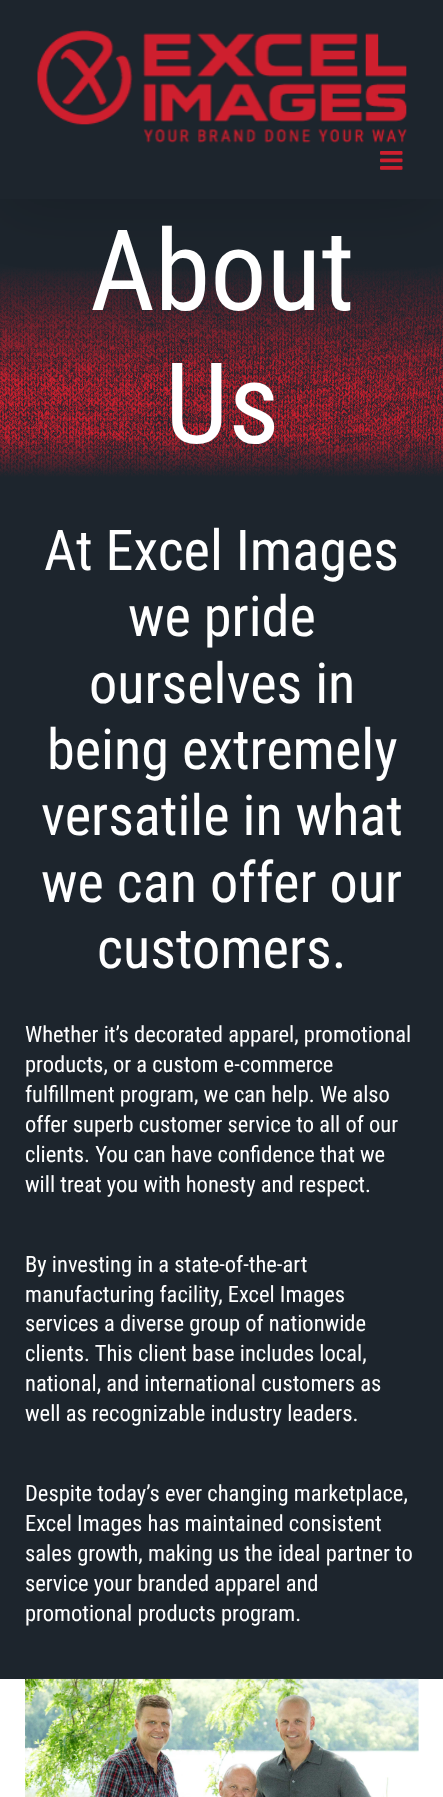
async function draw(canvas) {
  canvas.width = 443;
  canvas.height = 1797;
  const ctx = canvas.getContext('2d');
  ctx.miterLimit = 4;
  ctx.fontKerning = 'normal';
  function label(s, x, y, font, color) {
    ctx.font = font;
    ctx.fillStyle = color;
    ctx.fillText(s, x, y);
  }
  function rect(x, y, w, h, color) {
    ctx.fillStyle = color;
    ctx.fillRect(x, y, w, h);
  }
  async function image(src, x, y, w, h) {
    const img = new Image();
    img.src = src;
    await img.decode();
    ctx.drawImage(img, x, y, w, h);
  }

  rect(0, 0, 443, 1797, '#fff');
  await image('assets/img3.png', 0, 199, 443, 281);
  ctx.fillStyle = '#00000024';
  ctx.filter = 'blur(31px)';
  ctx.beginPath();
  ctx.rect(3, 15, 438, 194);
  ctx.fill();
  ctx.filter = 'none';
  rect(0, 0, 443, 199, '#1d252d');
  await image('assets/img1.png', 37, 29, 370, 114);
  await image('assets/img2.png', 380, 151, 23, 19);
  label('About', 90, 310, '112.5px Roboto Condensed', '#fff');
  label('Us', 165, 443, '112.5px Roboto Condensed', '#fff');
  rect(0, 480, 443, 1199, '#1d252d');
  label('At Excel Images', 44, 570, '56.25px Roboto Condensed', '#fff');
  label('we pride', 128, 636, '56.25px Roboto Condensed', '#fff');
  label('ourselves in', 89, 703, '56.25px Roboto Condensed', '#fff');
  label('being extremely', 47, 769, '56.25px Roboto Condensed', '#fff');
  label('versatile in what', 41, 835, '56.25px Roboto Condensed', '#fff');
  label('we can offer our', 41, 902, '56.25px Roboto Condensed', '#fff');
  label('customers.', 97, 968, '56.25px Roboto Condensed', '#fff');
  label('Whether it’s decorated apparel, promotional', 25, 1042, '22.5px Roboto Condensed', '#fff');
  label('products, or a custom e-commerce', 25, 1072, '22.5px Roboto Condensed', '#fff');
  label('fulfillment program, we can help. We also', 25, 1102, '22.5px Roboto Condensed', '#fff');
  label('offer superb customer service to all of our', 25, 1132, '22.5px Roboto Condensed', '#fff');
  label('clients. You can have confidence that we', 25, 1162, '22.5px Roboto Condensed', '#fff');
  label('will treat you with honesty and respect.', 25, 1192, '22.5px Roboto Condensed', '#fff');
  label('By investing in a state-of-the-art', 25, 1272, '22.5px Roboto Condensed', '#fff');
  label('manufacturing facility, Excel Images', 25, 1302, '22.5px Roboto Condensed', '#fff');
  label('services a diverse group of nationwide', 25, 1331, '22.5px Roboto Condensed', '#fff');
  label('clients. This client base includes local,', 25, 1361, '22.5px Roboto Condensed', '#fff');
  label('national, and international customers as', 25, 1391, '22.5px Roboto Condensed', '#fff');
  label('well as recognizable industry leaders.', 25, 1421, '22.5px Roboto Condensed', '#fff');
  label('Despite today’s ever changing marketplace,', 25, 1501, '22.5px Roboto Condensed', '#fff');
  label('Excel Images has maintained consistent', 25, 1531, '22.5px Roboto Condensed', '#fff');
  label('sales growth, making us the ideal partner to', 25, 1561, '22.5px Roboto Condensed', '#fff');
  label('service your branded apparel and', 25, 1591, '22.5px Roboto Condensed', '#fff');
  label('promotional products program.', 25, 1621, '22.5px Roboto Condensed', '#fff');
  await image('assets/img4.png', 25, 1678, 394, 119);
}

draw(document.querySelector('canvas'));
